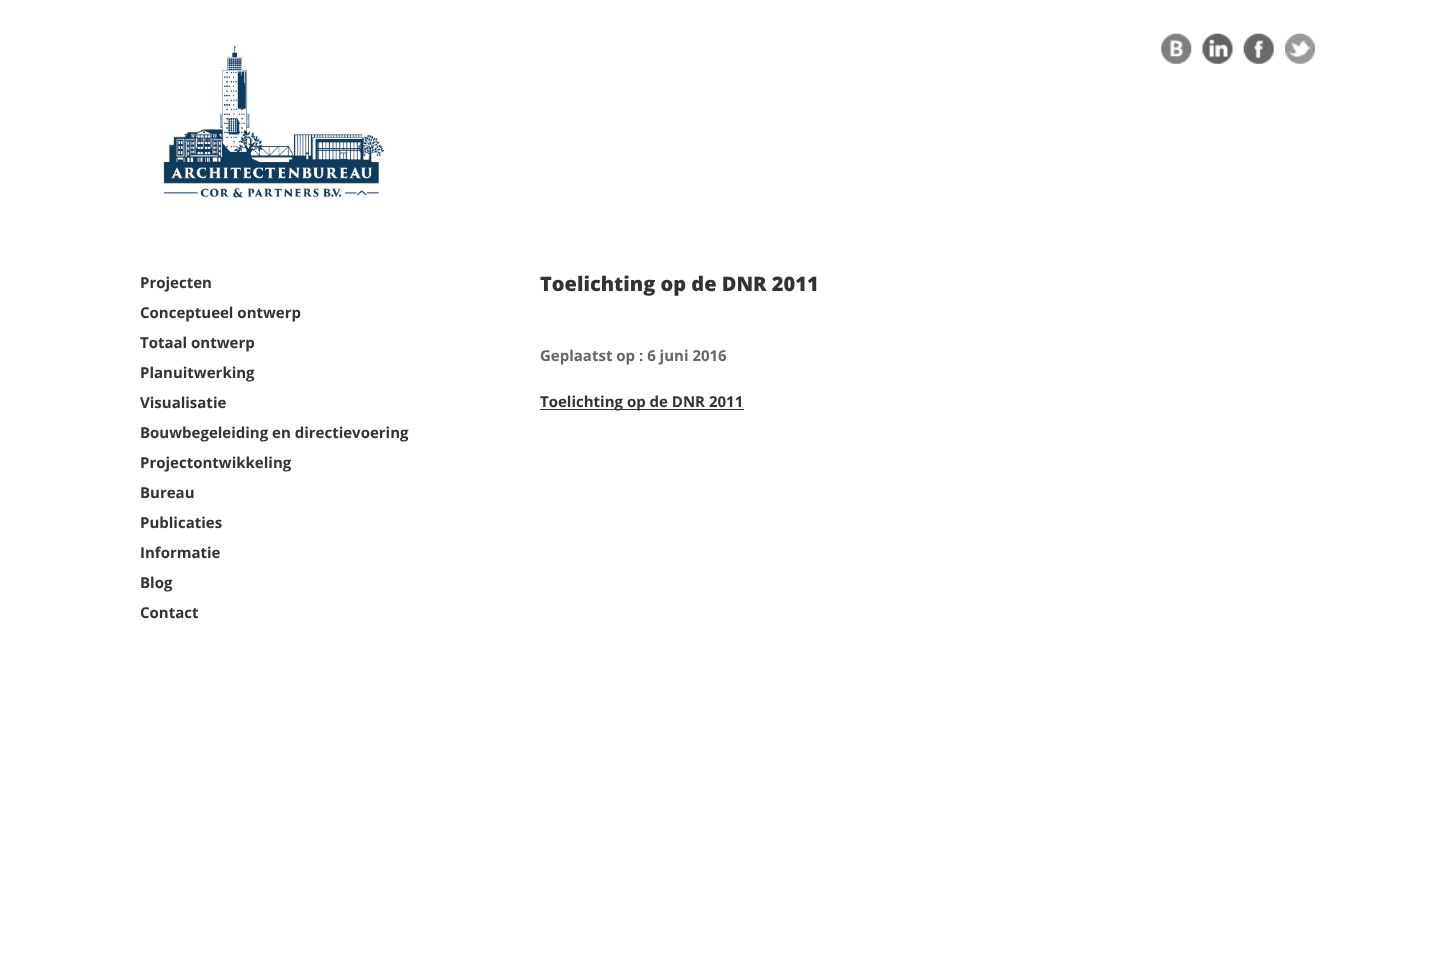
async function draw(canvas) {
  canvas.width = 1454;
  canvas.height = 958;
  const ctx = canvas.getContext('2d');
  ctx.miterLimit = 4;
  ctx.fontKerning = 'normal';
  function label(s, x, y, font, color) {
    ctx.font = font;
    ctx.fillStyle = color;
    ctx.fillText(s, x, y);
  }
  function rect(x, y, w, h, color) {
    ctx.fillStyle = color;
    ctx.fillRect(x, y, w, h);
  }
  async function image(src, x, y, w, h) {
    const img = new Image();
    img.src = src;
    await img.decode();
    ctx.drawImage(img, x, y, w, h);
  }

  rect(0, 0, 1454, 958, '#fff');
  await image('assets/img1.png', 163, 46, 222, 152);
  await image('assets/img2.png', 1161, 33, 31, 31);
  await image('assets/img3.png', 1202, 33, 31, 31);
  await image('assets/img4.png', 1243, 33, 31, 31);
  await image('assets/img5.png', 1285, 33, 30, 31);
  label('Projecten', 140, 288, 'bold 15px Open Sans', '#333');
  label('Conceptueel ontwerp', 140, 318, 'bold 15px Open Sans', '#333');
  label('Totaal ontwerp', 140, 348, 'bold 15px Open Sans', '#333');
  label('Planuitwerking', 140, 378, 'bold 15px Open Sans', '#333');
  label('Visualisatie', 140, 408, 'bold 15px Open Sans', '#333');
  label('Bouwbegeleiding en directievoering', 140, 438, 'bold 15px Open Sans', '#333');
  label('Projectontwikkeling', 140, 468, 'bold 15px Open Sans', '#333');
  label('Bureau', 140, 498, 'bold 15px Open Sans', '#333');
  label('Publicaties', 140, 528, 'bold 15px Open Sans', '#333');
  label('Informatie', 140, 558, 'bold 15px Open Sans', '#333');
  label('Blog', 140, 588, 'bold 15px Open Sans', '#333');
  label('Contact', 140, 618, 'bold 15px Open Sans', '#333');
  label('Toelichting op de DNR 2011', 540, 291, '800 20px Open Sans', '#333');
  label('Geplaatst op : 6 juni 2016', 540, 361, 'bold 15px Open Sans', '#666');
  rect(540, 409, 204, 1, '#333');
  label('Toelichting op de DNR 2011', 540, 407, 'bold 15px Open Sans', '#333');
}

draw(document.querySelector('canvas'));
